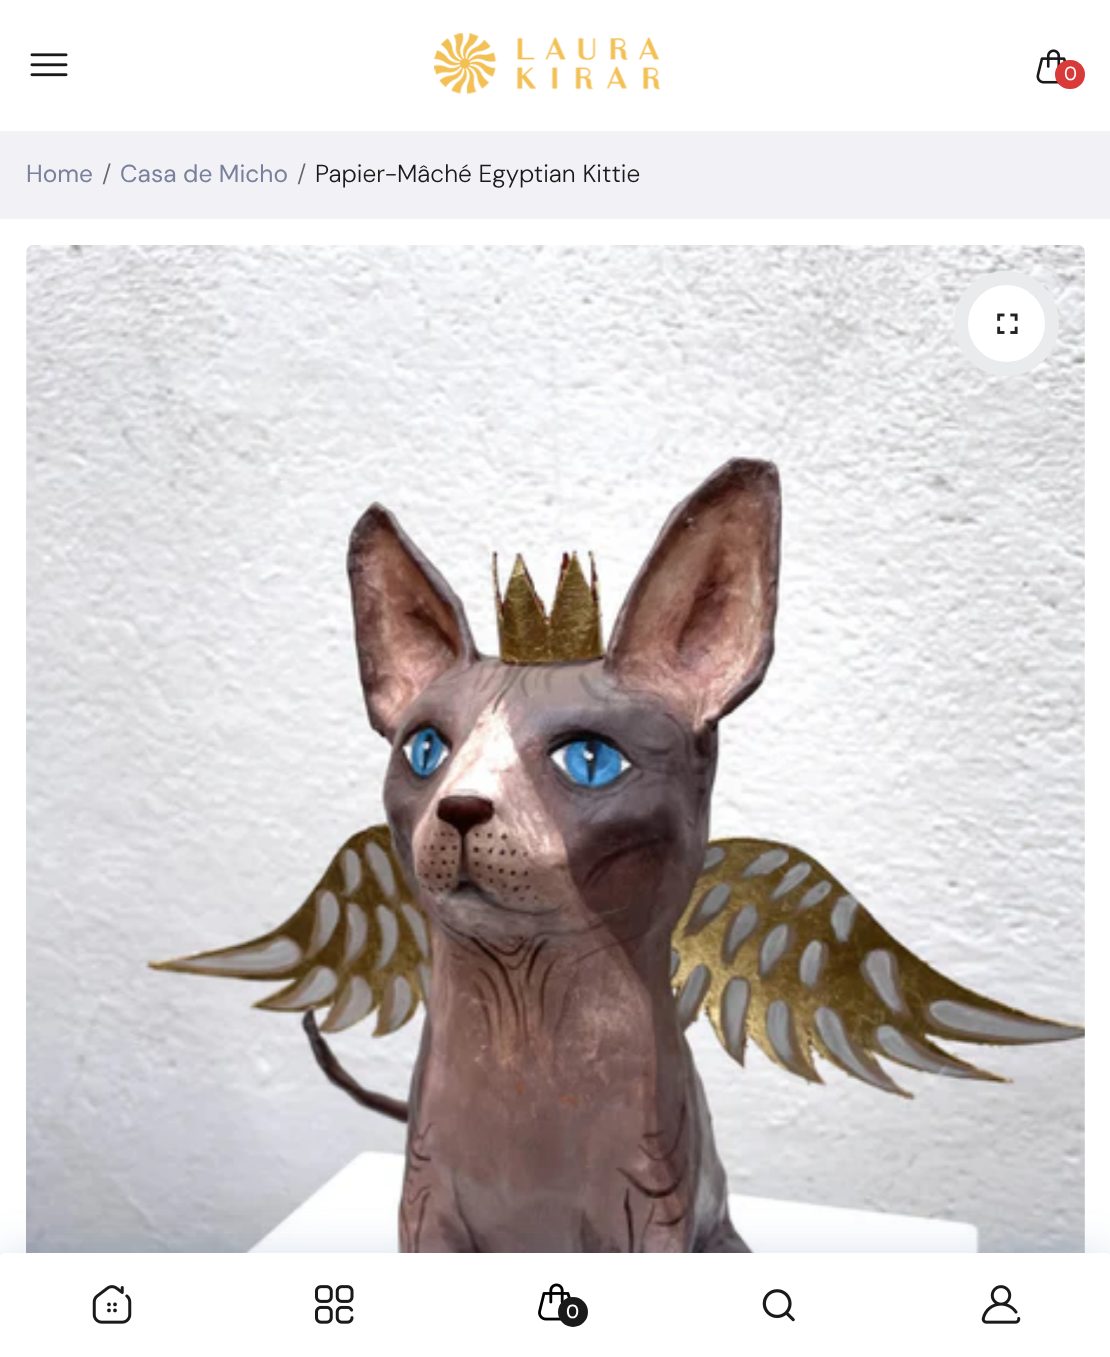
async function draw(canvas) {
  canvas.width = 1110;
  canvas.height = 1357;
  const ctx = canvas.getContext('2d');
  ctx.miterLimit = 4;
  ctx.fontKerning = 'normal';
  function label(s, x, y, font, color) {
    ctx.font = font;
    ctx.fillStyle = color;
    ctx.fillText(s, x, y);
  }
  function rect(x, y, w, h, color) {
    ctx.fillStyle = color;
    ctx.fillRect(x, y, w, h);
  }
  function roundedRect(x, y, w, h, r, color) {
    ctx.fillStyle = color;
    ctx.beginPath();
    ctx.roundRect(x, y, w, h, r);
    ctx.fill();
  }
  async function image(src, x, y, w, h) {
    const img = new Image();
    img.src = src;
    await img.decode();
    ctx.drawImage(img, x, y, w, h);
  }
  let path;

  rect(0, 0, 1110, 1357, '#fff');
  await image('assets/img1.png', 30, 53, 38, 24);
  await image('assets/img2.png', 434, 33, 226, 62);
  await image('assets/img3.png', 1036, 49, 31, 35);
  roundedRect(1055, 60, 30, 29, 14.5, '#d93939');
  label('0', 1064, 80, '19px DM Sans', '#fff');
  rect(0, 131, 1110, 88, '#f2f2f6');
  label('Home', 26, 182, '24.5px DM Sans', '#79819c');
  label('/', 102, 182, '300 24.5px DM Sans', '#666');
  label('Casa de Micho', 120, 182, '24.5px DM Sans', '#79819c');
  label('/', 297, 182, '300 24.5px DM Sans', '#666');
  label('Papier-Mâché Egyptian Kittie', 315, 182, '300 24.5px DM Sans', '#1a1a1a');
  await image('assets/img4.png', 26, 245, 1059, 1008);
  ctx.fillStyle = '#fff';
  ctx.beginPath();
  ctx.arc(1006.5, 323.5, 45.5, 0, 2 * Math.PI);
  ctx.fill();
  ctx.strokeStyle = '#eaebed';
  ctx.lineWidth = 14;
  ctx.stroke();
  await image('assets/img5.png', 997, 313, 21, 21);
  ctx.fillStyle = '#3d6ea833';
  ctx.filter = 'blur(22px)';
  ctx.beginPath();
  ctx.roundRect(0, 1253, 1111, 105, 5);
  ctx.fill();
  ctx.filter = 'none';
  ctx.fillStyle = '#fff';
  path = new Path2D('M5 1253H1106C1109 1253 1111 1255 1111 1258V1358H0V1258C0 1255 2 1253 5 1253Z');
  ctx.fill(path);
  await image('assets/img6.png', 92, 1285, 40, 39);
  await image('assets/img7.png', 315, 1285, 39, 39);
  await image('assets/img8.png', 538, 1283, 33, 38);
  ctx.fillStyle = '#1a1a1a';
  ctx.beginPath();
  ctx.arc(573, 1312, 15, 0, 2 * Math.PI);
  ctx.fill();
  label('0', 566, 1318, '500 19px DM Sans', '#fff');
  await image('assets/img9.png', 762, 1289, 33, 33);
  await image('assets/img10.png', 981, 1285, 40, 39);
}

draw(document.querySelector('canvas'));
